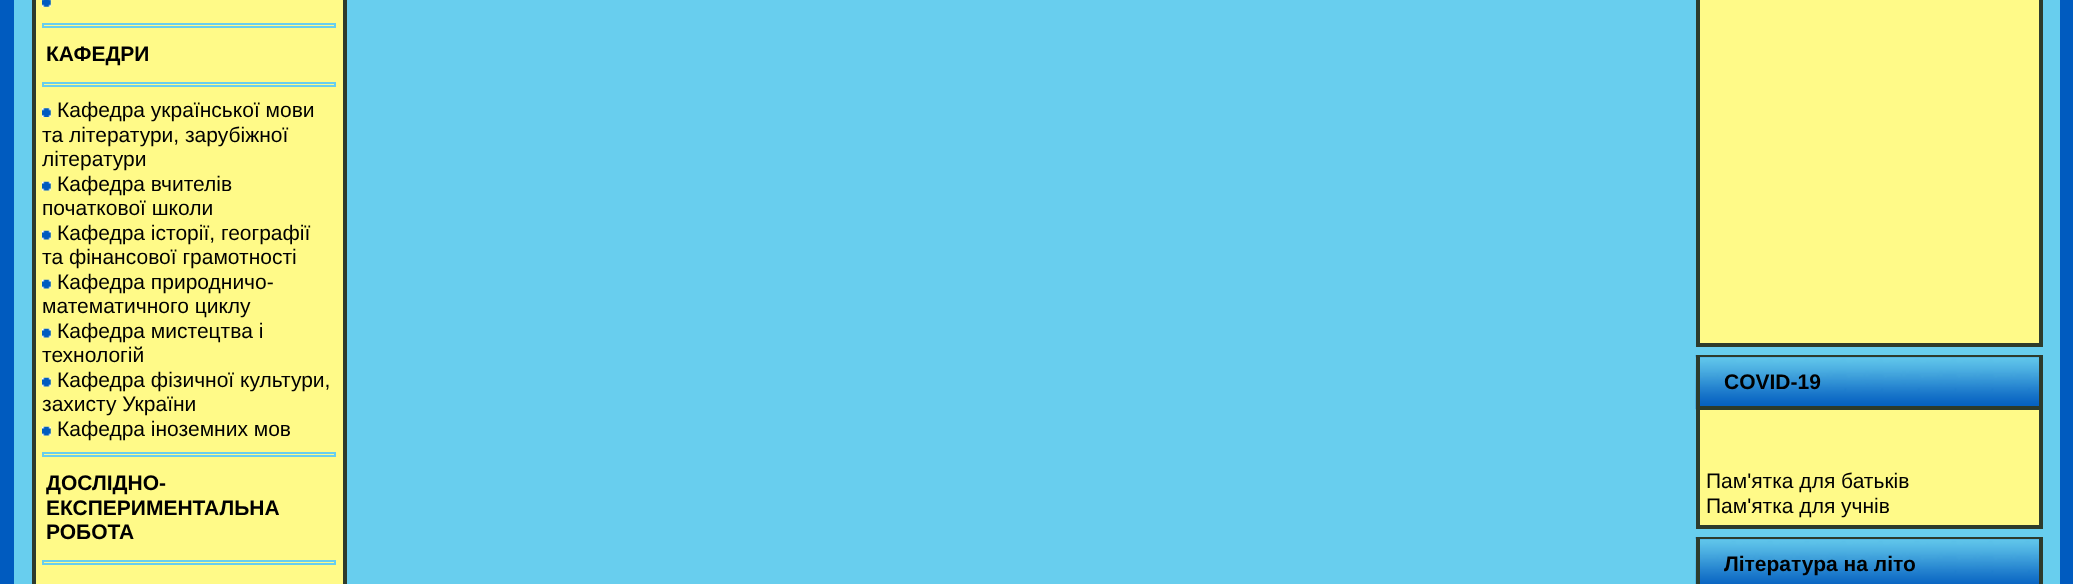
async function draw(canvas) {
  canvas.width = 2073;
  canvas.height = 584;
  const ctx = canvas.getContext('2d');
  ctx.miterLimit = 4;
  ctx.fontKerning = 'normal';
  function label(s, x, y, font, color) {
    ctx.font = font;
    ctx.fillStyle = color;
    ctx.fillText(s, x, y);
  }
  function rect(x, y, w, h, color) {
    ctx.fillStyle = color;
    ctx.fillRect(x, y, w, h);
  }
  async function image(src, x, y, w, h) {
    const img = new Image();
    img.src = src;
    await img.decode();
    ctx.drawImage(img, x, y, w, h);
  }

  rect(0, 0, 2073, 584, '#005bbf');
  rect(14, 0, 2046, 584, '#68ceee');
  rect(36, 0, 307, 584, '#fffa88');
  rect(343, 0, 4, 584, '#2d3b2c');
  rect(32, 0, 4, 584, '#2d3b2c');
  await image('assets/img1.png', 42, 0, 9, 7);
  ctx.strokeStyle = '#68ceee';
  ctx.lineWidth = 2;
  ctx.strokeRect(43, 24, 292, 3);
  label('КАФЕДРИ', 46, 61, 'bold 21px Liberation Sans', '#000');
  ctx.strokeRect(43, 83, 292, 3);
  await image('assets/img2.png', 42, 108, 9, 9);
  label('Кафедра української мови', 57, 117, '21px Liberation Sans', '#000');
  label('та літератури, зарубіжної', 42, 142, '21px Liberation Sans', '#000');
  label('літератури', 42, 166, '21px Liberation Sans', '#000');
  await image('assets/img3.png', 42, 181, 9, 10);
  label('Кафедра вчителів', 57, 191, '21px Liberation Sans', '#000');
  label('початкової школи', 42, 215, '21px Liberation Sans', '#000');
  await image('assets/img3.png', 42, 230, 9, 10);
  label('Кафедра історії, географії', 57, 240, '21px Liberation Sans', '#000');
  label('та фінансової грамотності', 42, 264, '21px Liberation Sans', '#000');
  await image('assets/img3.png', 42, 279, 9, 10);
  label('Кафедра природничо-', 57, 289, '21px Liberation Sans', '#000');
  label('математичного циклу', 42, 313, '21px Liberation Sans', '#000');
  await image('assets/img3.png', 42, 328, 9, 10);
  label('Кафедра мистецтва і', 57, 338, '21px Liberation Sans', '#000');
  label('технологій', 42, 362, '21px Liberation Sans', '#000');
  await image('assets/img3.png', 42, 377, 9, 10);
  label('Кафедра фізичної культури,', 57, 387, '21px Liberation Sans', '#000');
  label('захисту України', 42, 411, '21px Liberation Sans', '#000');
  await image('assets/img3.png', 42, 426, 9, 10);
  label('Кафедра іноземних мов', 57, 436, '21px Liberation Sans', '#000');
  ctx.strokeRect(43, 453, 292, 3);
  label('ДОСЛІДНО-', 46, 490, 'bold 21px Liberation Sans', '#000');
  label('ЕКСПЕРИМЕНТАЛЬНА', 46, 515, 'bold 21px Liberation Sans', '#000');
  label('РОБОТА', 46, 539, 'bold 21px Liberation Sans', '#000');
  ctx.strokeRect(43, 561, 292, 3);
  rect(1700, 0, 339, 343, '#fffa88');
  rect(2039, 0, 4, 347, '#2d3b2c');
  rect(1696, 343, 346, 4, '#2d3b2c');
  rect(1696, 0, 4, 347, '#2d3b2c');
  await image('assets/img4.png', 1695, 355, 344, 55);
  rect(1696, 355, 346, 2, '#2d3b2c');
  rect(2039, 355, 4, 174, '#2d3b2c');
  rect(1696, 406, 346, 4, '#2d3b2c');
  rect(1696, 355, 4, 55, '#2d3b2c');
  label('COVID-19', 1724, 389, 'bold 21px Liberation Sans', '#000');
  rect(1700, 410, 339, 115, '#fffa88');
  rect(1696, 525, 346, 4, '#2d3b2c');
  rect(1696, 410, 4, 119, '#2d3b2c');
  label('Пам\'ятка для батьків', 1706, 488, '21px Liberation Sans', '#000');
  label('Пам\'ятка для учнів', 1706, 513, '21px Liberation Sans', '#000');
  await image('assets/img5.png', 1695, 537, 344, 47);
  rect(1696, 537, 346, 2, '#2d3b2c');
  rect(2039, 537, 4, 47, '#2d3b2c');
  rect(1696, 537, 4, 47, '#2d3b2c');
  label('Література на літо', 1724, 571, 'bold 21px Liberation Sans', '#000');
}

draw(document.querySelector('canvas'));
